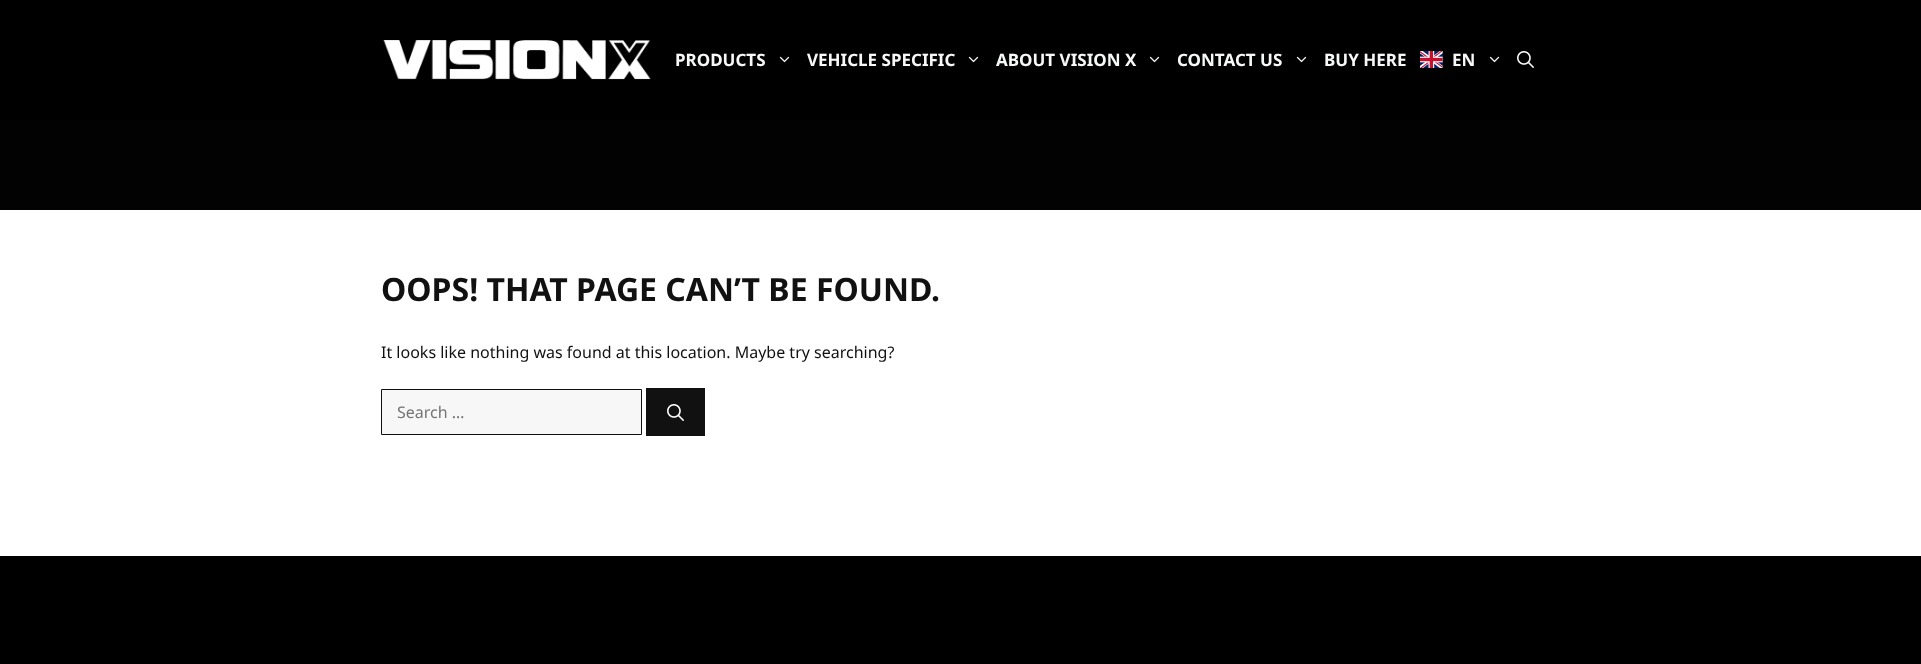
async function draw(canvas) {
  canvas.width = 1921;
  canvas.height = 664;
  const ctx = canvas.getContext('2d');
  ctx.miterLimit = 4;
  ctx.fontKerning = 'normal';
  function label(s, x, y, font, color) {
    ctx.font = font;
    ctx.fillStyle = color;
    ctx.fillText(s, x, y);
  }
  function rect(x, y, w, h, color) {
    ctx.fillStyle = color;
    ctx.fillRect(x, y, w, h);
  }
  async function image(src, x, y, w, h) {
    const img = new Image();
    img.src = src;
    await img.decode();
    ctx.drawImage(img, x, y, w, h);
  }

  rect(0, 0, 1921, 664, '#fff');
  rect(0, 0, 1921, 120, '#000');
  await image('assets/img1.png', 383, 40, 268, 40);
  label('PRODUCTS', 675, 66, 'bold 17px Noto Sans', '#f7f8f9');
  await image('assets/img2.png', 779, 56, 11, 7);
  label('VEHICLE SPECIFIC', 807, 66, 'bold 17px Noto Sans', '#f7f8f9');
  await image('assets/img2.png', 968, 56, 11, 7);
  label('ABOUT VISION X', 996, 66, 'bold 17px Noto Sans', '#f7f8f9');
  await image('assets/img2.png', 1149, 56, 11, 7);
  label('CONTACT US', 1177, 66, 'bold 17px Noto Sans', '#f7f8f9');
  await image('assets/img2.png', 1296, 56, 11, 7);
  label('BUY HERE', 1324, 66, 'bold 17px Noto Sans', '#f7f8f9');
  await image('assets/img3.png', 1420, 51, 23, 17);
  label('EN', 1452, 66, 'bold 17px Noto Sans', '#f7f8f9');
  await image('assets/img2.png', 1489, 56, 11, 7);
  await image('assets/img4.png', 1517, 51, 17, 17);
  rect(0, 120, 1921, 90, '#020202');
  label('OOPS! THAT PAGE CAN’T BE FOUND.', 381, 301, 'bold 32px Noto Sans', '#111');
  label('It looks like nothing was found at this location. Maybe try searching?', 381, 358, '16px Noto Sans', '#111');
  ctx.fillStyle = '#f7f7f7';
  ctx.beginPath();
  ctx.rect(381.5, 389.5, 260, 45);
  ctx.fill();
  ctx.strokeStyle = '#111';
  ctx.stroke();
  label('Search …', 397, 418, '16px Noto Sans', '#757575');
  rect(646, 388, 59, 48, '#111');
  await image('assets/img5.png', 667, 404, 17, 17);
  rect(0, 556, 1921, 108, '#000');
}

draw(document.querySelector('canvas'));
